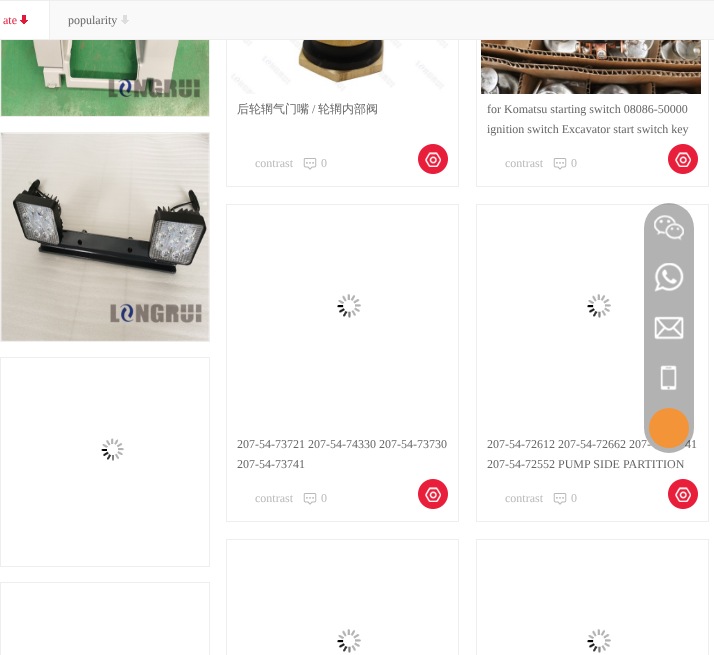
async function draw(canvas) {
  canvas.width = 714;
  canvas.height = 655;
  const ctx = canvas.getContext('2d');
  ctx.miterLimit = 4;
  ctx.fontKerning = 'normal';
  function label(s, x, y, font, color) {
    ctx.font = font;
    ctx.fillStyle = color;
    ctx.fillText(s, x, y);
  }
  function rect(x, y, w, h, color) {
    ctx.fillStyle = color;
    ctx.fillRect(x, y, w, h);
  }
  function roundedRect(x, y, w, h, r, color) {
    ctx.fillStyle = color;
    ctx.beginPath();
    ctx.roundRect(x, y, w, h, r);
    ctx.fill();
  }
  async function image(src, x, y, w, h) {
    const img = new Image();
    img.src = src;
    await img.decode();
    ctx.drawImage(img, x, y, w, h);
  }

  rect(0, 0, 714, 655, '#fff');
  ctx.strokeStyle = '#eee';
  ctx.strokeRect(0.5, -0.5, 209, 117);
  await image('assets/img1.png', 1, 40, 208, 76);
  ctx.strokeRect(0.5, 132.5, 209, 209);
  await image('assets/img2.png', 1, 133, 208, 208);
  ctx.strokeRect(0.5, 357.5, 209, 209);
  await image('assets/img3.png', 101, 438, 23, 23);
  ctx.strokeRect(0.5, 582.5, 209, 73);
  ctx.strokeRect(226.5, -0.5, 232, 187);
  ctx.strokeRect(476.5, -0.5, 232, 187);
  ctx.strokeRect(-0.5, 0.5, 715, 39);
  rect(50, 1, 664, 38, '#f9f9f9');
  rect(0, 1, 1, 38, '#fff');
  rect(49, 1, 1, 38, '#eee');
  label('ate', 3, 24, '12px Liberation Serif', '#e31939');
  await image('assets/img4.png', 20, 15, 8, 9);
  label('popularity', 68, 24, '12px Liberation Serif', '#666');
  await image('assets/img5.png', 121, 15, 8, 9);
  await image('assets/img6.png', 231, 40, 220, 54);
  label('后轮辋气门嘴', 237, 113, '500 12px WenQuanYi Zen Hei', '#666');
  label('/', 312, 113, '12px Liberation Serif', '#666');
  label('轮辋内部阀', 318, 113, '500 12px WenQuanYi Zen Hei', '#666');
  label('contrast', 255, 167, '12px Liberation Serif', '#b9b9b9');
  await image('assets/img7.png', 303, 158, 14, 12);
  label('0', 321, 167, '12px Liberation Serif', '#b9b9b9');
  await image('assets/img8.png', 418, 144, 30, 30);
  await image('assets/img9.png', 481, 40, 220, 54);
  label('for Komatsu starting switch 08086-50000', 487, 113, '12px Liberation Serif', '#666');
  label('ignition switch Excavator start switch key', 487, 133, '12px Liberation Serif', '#666');
  label('contrast', 505, 167, '12px Liberation Serif', '#b9b9b9');
  await image('assets/img7.png', 553, 158, 14, 12);
  label('0', 571, 167, '12px Liberation Serif', '#b9b9b9');
  await image('assets/img8.png', 668, 144, 30, 30);
  ctx.strokeRect(226.5, 204.5, 232, 317);
  await image('assets/img10.png', 337, 294, 24, 24);
  label('207-54-73721 207-54-74330 207-54-73730', 237, 448, '12px Liberation Serif', '#666');
  label('207-54-73741', 237, 468, '12px Liberation Serif', '#666');
  label('contrast', 255, 502, '12px Liberation Serif', '#b9b9b9');
  await image('assets/img7.png', 303, 493, 14, 12);
  label('0', 321, 502, '12px Liberation Serif', '#b9b9b9');
  await image('assets/img8.png', 418, 479, 30, 30);
  ctx.strokeRect(476.5, 204.5, 232, 317);
  await image('assets/img10.png', 587, 294, 24, 24);
  label('207-54-72612 207-54-72662 207-', 487, 448, '12px Liberation Serif', '#666');
  label('41', 685, 448, '12px Liberation Serif', '#666');
  label('207-54-72552 PUMP SIDE PARTITION', 487, 468, '12px Liberation Serif', '#666');
  label('contrast', 505, 502, '12px Liberation Serif', '#b9b9b9');
  await image('assets/img7.png', 553, 493, 14, 12);
  label('0', 571, 502, '12px Liberation Serif', '#b9b9b9');
  await image('assets/img8.png', 668, 479, 30, 30);
  ctx.strokeRect(226.5, 539.5, 232, 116);
  await image('assets/img10.png', 337, 629, 24, 24);
  ctx.strokeRect(476.5, 539.5, 232, 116);
  await image('assets/img10.png', 587, 629, 24, 24);
  roundedRect(644, 203, 50, 250, 25, '#0000004d');
  await image('assets/img11.png', 654, 215, 30, 26);
  await image('assets/img12.png', 654, 263, 30, 29);
  await image('assets/img13.png', 654, 316, 30, 24);
  await image('assets/img14.png', 660, 365, 17, 26);
  ctx.fillStyle = '#f29437';
  ctx.beginPath();
  ctx.arc(669, 428, 20, 0, 2 * Math.PI);
  ctx.fill();
}

draw(document.querySelector('canvas'));
